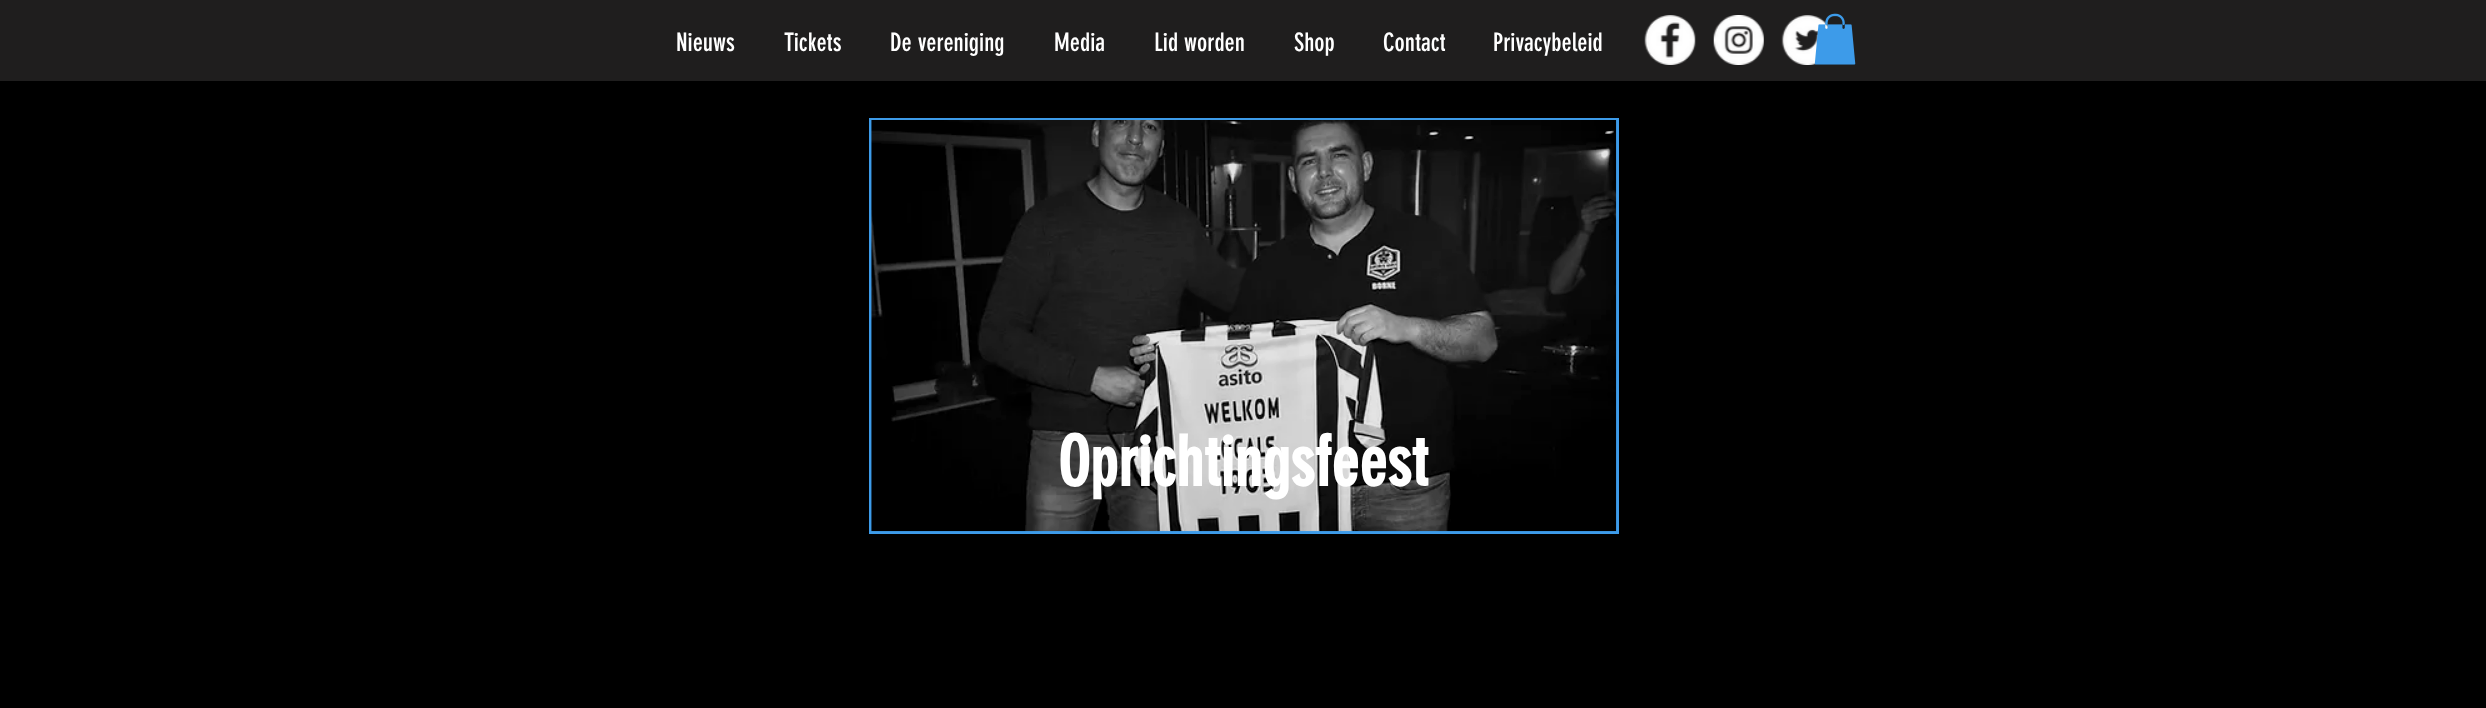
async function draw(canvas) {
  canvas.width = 2486;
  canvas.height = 708;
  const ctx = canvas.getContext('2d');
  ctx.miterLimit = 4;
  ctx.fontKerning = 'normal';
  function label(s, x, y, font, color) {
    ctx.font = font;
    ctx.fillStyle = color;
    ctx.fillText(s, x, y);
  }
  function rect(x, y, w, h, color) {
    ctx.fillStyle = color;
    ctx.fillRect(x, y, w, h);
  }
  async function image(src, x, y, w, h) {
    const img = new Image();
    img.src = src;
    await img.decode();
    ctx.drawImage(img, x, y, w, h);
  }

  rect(0, 0, 2486, 708, '#000');
  rect(0, 0, 2486, 81, '#1f1e1e');
  label('Nieuws', 676, 51, '25px "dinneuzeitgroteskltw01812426"', '#fff');
  label('Tickets', 784, 51, '25px "dinneuzeitgroteskltw01812426"', '#fff');
  label('De vereniging', 890, 51, '25px "dinneuzeitgroteskltw01812426"', '#fff');
  label('Media', 1054, 51, '25px "dinneuzeitgroteskltw01812426"', '#fff');
  label('Lid worden', 1154, 51, '25px "dinneuzeitgroteskltw01812426"', '#fff');
  label('Shop', 1294, 51, '25px "dinneuzeitgroteskltw01812426"', '#fff');
  label('Contact', 1383, 51, '25px "dinneuzeitgroteskltw01812426"', '#fff');
  label('Privacybeleid', 1493, 51, '25px "dinneuzeitgroteskltw01812426"', '#fff');
  await image('assets/img1.png', 1644, 15, 52, 50);
  await image('assets/img2.png', 1713, 15, 51, 50);
  await image('assets/img3.png', 1781, 15, 47, 50);
  await image('assets/img4.png', 1814, 13, 42, 52);
  rect(869, 118, 750, 416, '#3d9be9');
  await image('assets/img5.png', 871, 120, 746, 412);
  label('Oprichtingsfeest', 1058, 486, 'bold 68.75px "dinneuzeitgroteskltw01812426"', '#fff');
}

draw(document.querySelector('canvas'));
